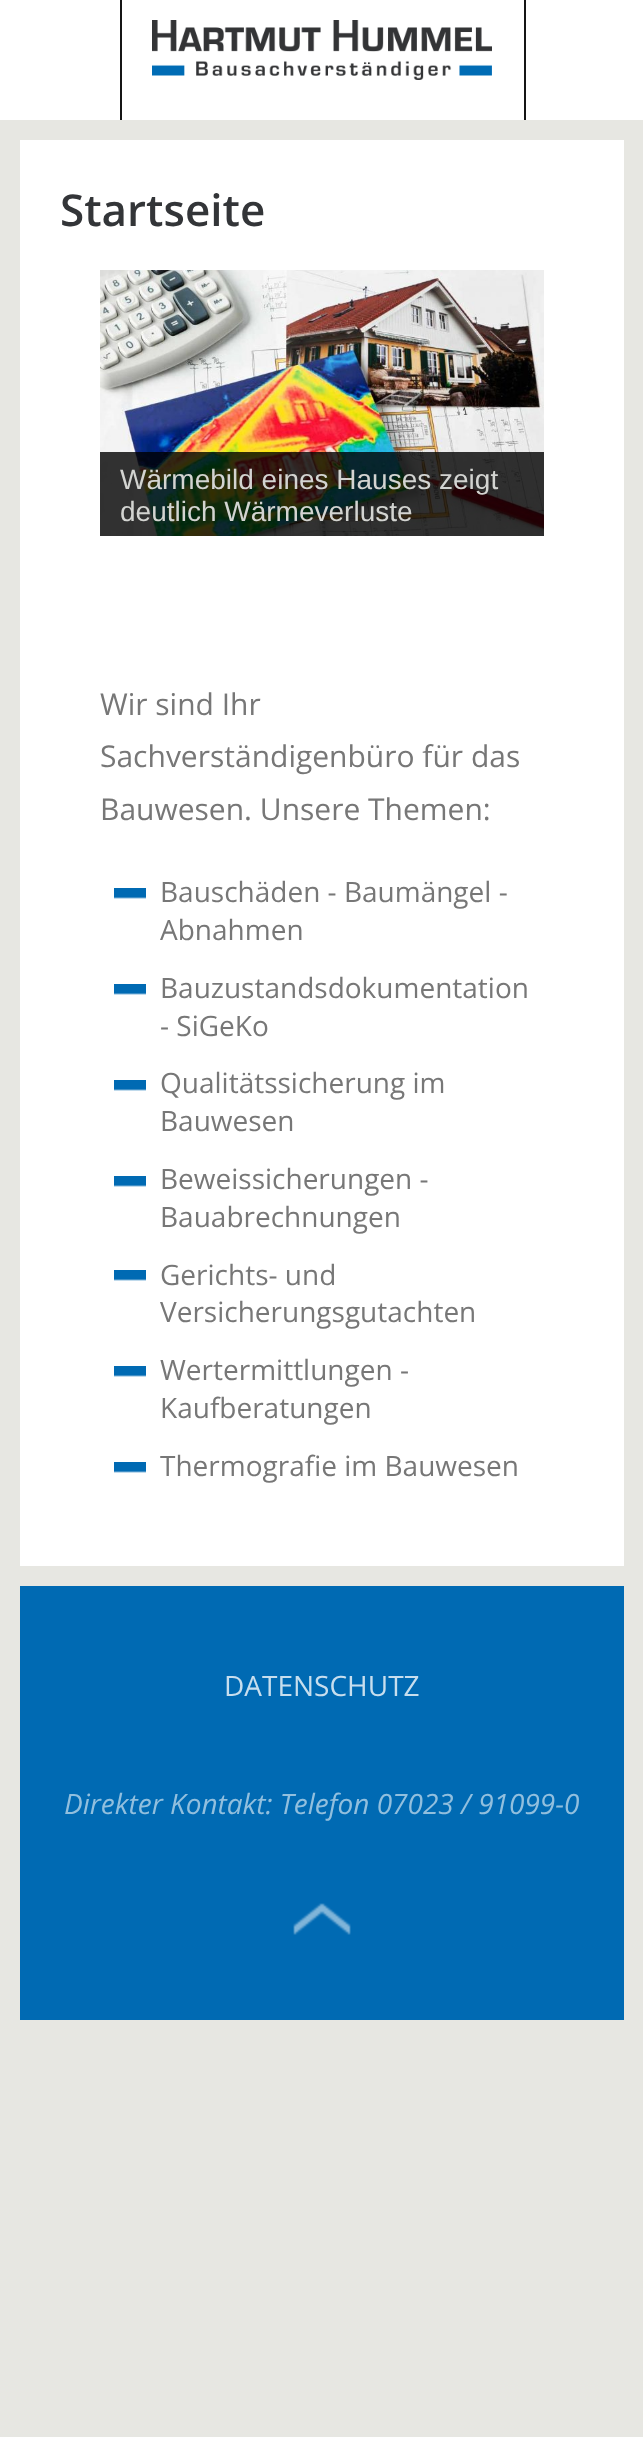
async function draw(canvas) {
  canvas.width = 643;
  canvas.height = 2437;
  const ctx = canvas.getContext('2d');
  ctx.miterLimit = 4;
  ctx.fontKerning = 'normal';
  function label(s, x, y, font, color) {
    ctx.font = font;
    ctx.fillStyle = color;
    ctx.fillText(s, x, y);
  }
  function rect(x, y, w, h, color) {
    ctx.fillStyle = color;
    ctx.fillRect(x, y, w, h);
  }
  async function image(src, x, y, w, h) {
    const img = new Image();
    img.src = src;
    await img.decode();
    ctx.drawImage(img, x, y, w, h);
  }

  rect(0, 0, 643, 2437, '#e7e7e2');
  rect(0, 0, 643, 120, '#fff');
  await image('assets/img1.png', 152, 20, 340, 60);
  rect(120, 0, 2, 120, '#151515');
  rect(524, 0, 2, 120, '#151515');
  rect(20, 140, 604, 1426, '#fff');
  label('Startseite', 60, 226, '600 44px Open Sans', '#333538');
  await image('assets/img2.png', 100, 270, 444, 266);
  rect(100, 452, 444, 84, '#000000cc');
  label('Wärmebild eines Hauses zeigt', 120, 489, '28px Liberation Sans', '#d3d4d1');
  label('deutlich Wärmeverluste', 120, 521, '28px Liberation Sans', '#d3d4d1');
  label('Wir sind Ihr', 100, 715, '30px Open Sans', '#777');
  label('Sachverständigenbüro für das', 100, 767, '30px Open Sans', '#777');
  label('Bauwesen. Unsere Themen:', 100, 820, '30px Open Sans', '#777');
  await image('assets/img3.png', 114, 888, 32, 11);
  label('Bauschäden - Baumängel -', 160, 902, '28px Open Sans', '#777');
  label('Abnahmen', 160, 940, '28px Open Sans', '#777');
  await image('assets/img3.png', 114, 984, 32, 11);
  label('Bauzustandsdokumentation', 160, 998, '28px Open Sans', '#777');
  label('- SiGeKo', 160, 1036, '28px Open Sans', '#777');
  await image('assets/img3.png', 114, 1080, 32, 11);
  label('Qualitätssicherung im', 160, 1093, '28px Open Sans', '#777');
  label('Bauwesen', 160, 1131, '28px Open Sans', '#777');
  await image('assets/img3.png', 114, 1176, 32, 11);
  label('Beweissicherungen -', 160, 1189, '28px Open Sans', '#777');
  label('Bauabrechnungen', 160, 1227, '28px Open Sans', '#777');
  await image('assets/img3.png', 114, 1270, 32, 11);
  label('Gerichts- und', 160, 1285, '28px Open Sans', '#777');
  label('Versicherungsgutachten', 160, 1322, '28px Open Sans', '#777');
  await image('assets/img3.png', 114, 1366, 32, 11);
  label('Wertermittlungen -', 160, 1380, '28px Open Sans', '#777');
  label('Kaufberatungen', 160, 1418, '28px Open Sans', '#777');
  await image('assets/img3.png', 114, 1462, 32, 11);
  label('Thermografie im Bauwesen', 160, 1476, '28px Open Sans', '#777');
  rect(20, 1586, 604, 434, '#006ab3');
  label('DATENSCHUTZ', 224, 1696, '28px Open Sans', '#c7deee');
  label('Direkter Kontakt: Telefon 07023 / 91099-0', 64, 1814, 'italic 28px Open Sans', '#91bfde');
  await image('assets/img4.png', 293, 1903, 58, 32);
}

draw(document.querySelector('canvas'));
